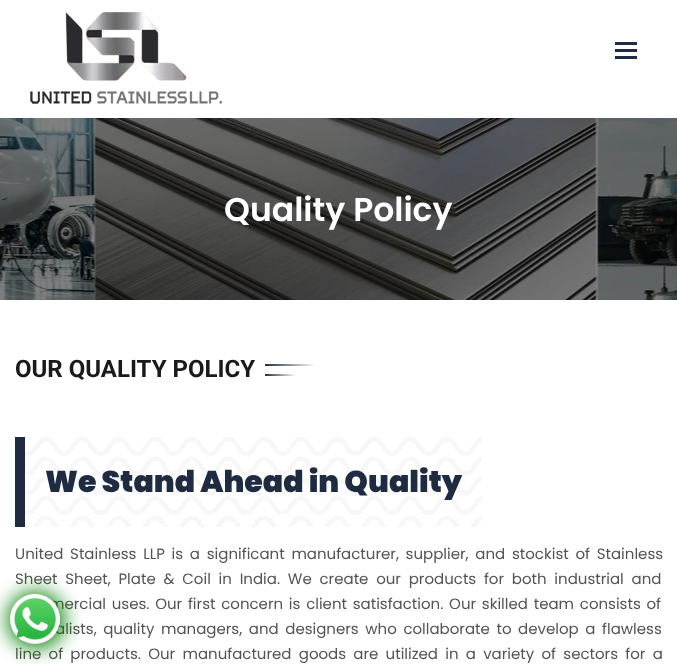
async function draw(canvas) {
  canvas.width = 677;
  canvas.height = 664;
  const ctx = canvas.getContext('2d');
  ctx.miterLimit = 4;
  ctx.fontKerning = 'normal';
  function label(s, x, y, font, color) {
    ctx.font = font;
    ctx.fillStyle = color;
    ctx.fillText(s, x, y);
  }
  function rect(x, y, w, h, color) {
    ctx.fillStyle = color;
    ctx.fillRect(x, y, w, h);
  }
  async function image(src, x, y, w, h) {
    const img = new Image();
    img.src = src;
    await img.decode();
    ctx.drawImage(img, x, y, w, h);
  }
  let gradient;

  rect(0, 0, 677, 664, '#fff');
  await image('assets/img1.png', 30, 12, 192, 92);
  rect(615, 42, 22, 3, '#1e2b41');
  rect(615, 49, 22, 3, '#1e2b41');
  rect(615, 56, 22, 3, '#1e2b41');
  await image('assets/img2.png', 0, 118, 677, 182);
  label('Quality Policy', 224, 221, '600 33px Poppins', '#fff');
  label('OUR QUALITY POLICY', 15, 377, 'bold 24px Roboto', '#1a1a1a');
  gradient = ctx.createLinearGradient(272, 383, 288, 367);
  gradient.addColorStop(0, '#1e2b41');
  gradient.addColorStop(1, '#fff');
  ctx.fillStyle = gradient;
  ctx.fillRect(265, 374, 30, 2);
  gradient = ctx.createLinearGradient(277, 378, 303, 352);
  gradient.addColorStop(0, '#1e2b41');
  gradient.addColorStop(1, '#fff');
  ctx.fillStyle = gradient;
  ctx.fillRect(265, 364, 50, 2);
  await image('assets/img3.png', 25, 437, 457, 90);
  rect(15, 437, 10, 90, '#1e2b41');
  label('We Stand Ahead in Quality', 45, 492, '900 30px Poppins', '#1e2b41');
  ctx.wordSpacing = '2.75px';
  label('United Stainless LLP is a significant manufacturer, supplier, and stockist of Stainless', 15, 559, '15px Poppins', '#555353');
  ctx.wordSpacing = '3.75px';
  label('Sheet Sheet, Plate & Coil in India. We create our products for both industrial and', 15, 584, '15px Poppins', '#555353');
  ctx.wordSpacing = '1.75px';
  label('mercial uses. Our first concern is client satisfaction. Our skilled team consists of', 49, 609, '15px Poppins', '#555353');
  ctx.wordSpacing = '2.6px';
  label('alists, quality managers, and designers who collaborate to develop a flawless', 55, 634, '15px Poppins', '#555353');
  ctx.wordSpacing = '3.25px';
  label('line of products. Our manufactured goods are utilized in a variety of sectors for a', 15, 659, '15px Poppins', '#555353');
  ctx.fillStyle = '#008000';
  ctx.filter = 'blur(10px)';
  ctx.beginPath();
  ctx.roundRect(8, 592, 56, 56, 28);
  ctx.fill();
  ctx.filter = 'none';
  ctx.fillStyle = '#fff';
  ctx.beginPath();
  ctx.arc(35, 619, 25, 0, 2 * Math.PI);
  ctx.fill();
  await image('assets/img4.png', 10, 594, 50, 50);
}

draw(document.querySelector('canvas'));
